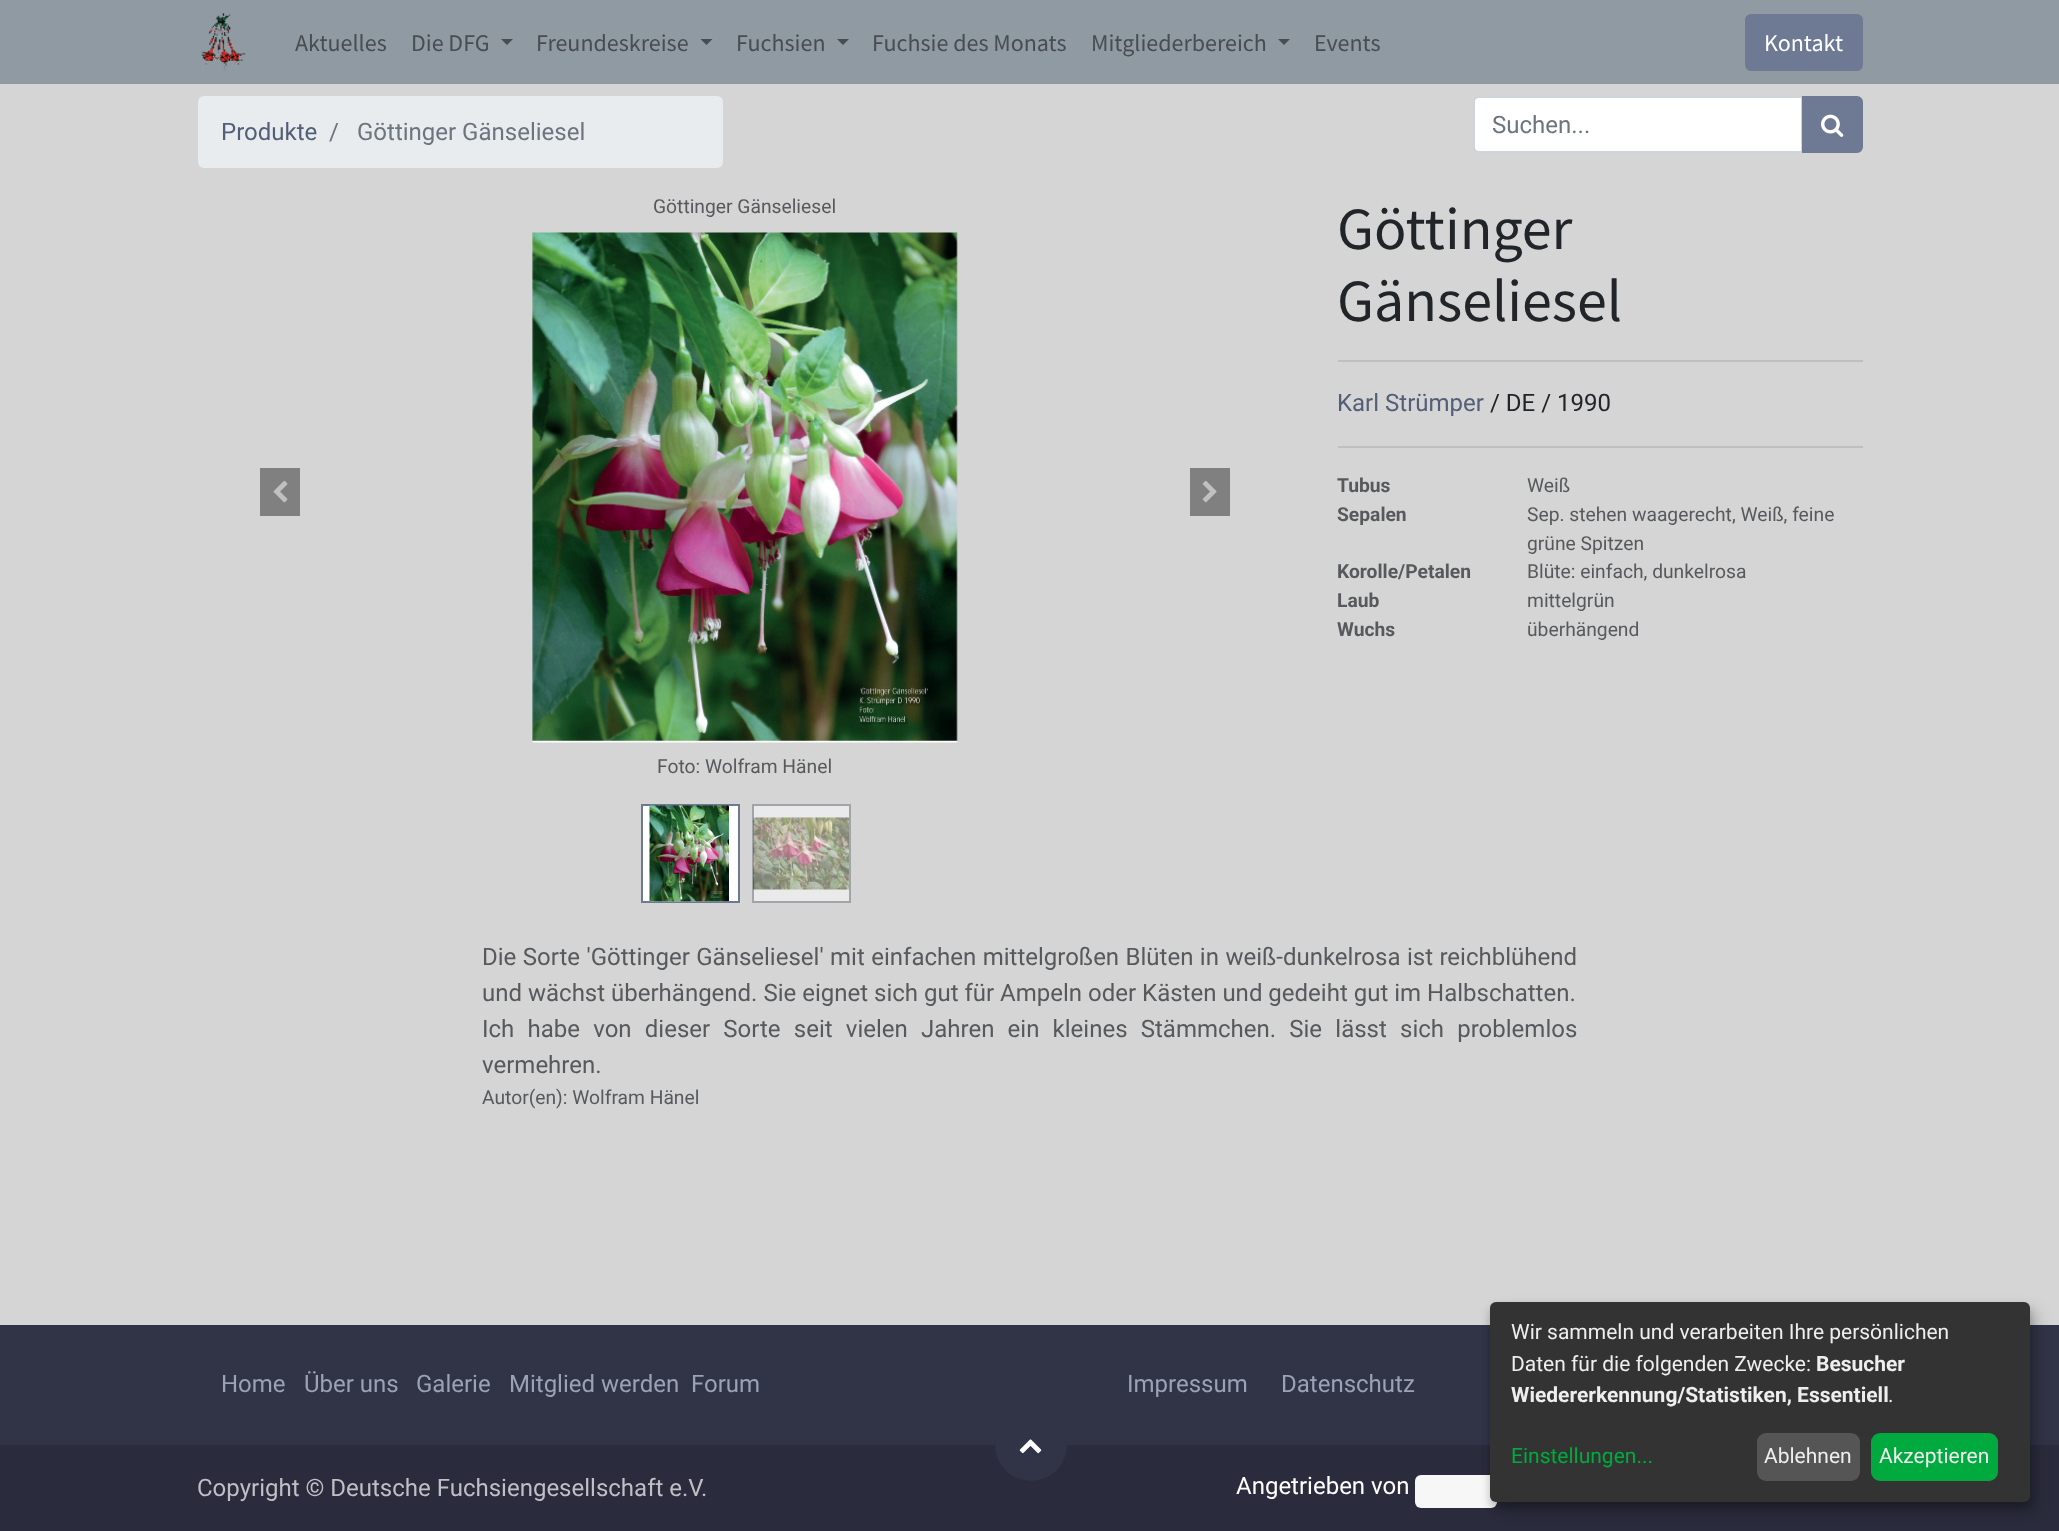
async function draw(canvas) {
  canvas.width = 2059;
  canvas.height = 1531;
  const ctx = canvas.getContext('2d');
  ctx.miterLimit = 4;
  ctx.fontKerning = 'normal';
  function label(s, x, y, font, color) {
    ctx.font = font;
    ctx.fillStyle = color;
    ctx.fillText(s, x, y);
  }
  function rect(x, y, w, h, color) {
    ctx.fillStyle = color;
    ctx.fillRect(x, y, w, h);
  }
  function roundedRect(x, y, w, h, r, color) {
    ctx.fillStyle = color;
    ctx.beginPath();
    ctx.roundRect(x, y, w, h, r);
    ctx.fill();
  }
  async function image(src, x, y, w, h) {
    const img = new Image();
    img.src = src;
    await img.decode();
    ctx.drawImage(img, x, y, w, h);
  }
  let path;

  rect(0, 0, 2059, 1531, '#d5d5d5');
  rect(0, 0, 2059, 84, '#8f9aa2');
  await image('assets/img1.png', 201, 13, 45, 58);
  label('Aktuelles', 295, 51, '24px Source Sans Pro', '#484d51');
  label('Die DFG', 411, 51, '24px Source Sans Pro', '#484d51');
  path = new Path2D('M501 39H513L507 45Z');
  ctx.fill(path);
  label('Freundeskreise', 536, 51, '24px Source Sans Pro', '#484d51');
  path = new Path2D('M700.5 39H712.5L706.5 45Z');
  ctx.fill(path);
  label('Fuchsien', 736, 51, '24px Source Sans Pro', '#484d51');
  path = new Path2D('M837 39H849L843 45Z');
  ctx.fill(path);
  label('Fuchsie des Monats', 872, 51, '24px Source Sans Pro', '#484d51');
  label('Mitgliederbereich', 1091, 51, '24px Source Sans Pro', '#484d51');
  path = new Path2D('M1278 39H1290L1284 45Z');
  ctx.fill(path);
  label('Events', 1314, 51, '24px Source Sans Pro', '#484d51');
  ctx.fillStyle = '#6e7993';
  ctx.beginPath();
  ctx.roundRect(1746, 15, 116, 55, 5);
  ctx.fill();
  ctx.strokeStyle = '#6e7993';
  ctx.lineWidth = 2;
  ctx.stroke();
  label('Kontakt', 1764, 51, '24px Source Sans Pro', '#fff');
  roundedRect(198, 96, 525, 72, 6, '#e9ecef');
  label('Produkte', 221, 140, '24px Roboto', '#535f78');
  label('/', 329, 140, '24px Roboto', '#6c757d');
  label('Göttinger Gänseliesel', 357, 140, '24px Roboto', '#6c757d');
  ctx.fillStyle = '#fff';
  ctx.beginPath();
  ctx.roundRect(1474, 97, 328, 55, [5, 0, 0, 5]);
  ctx.fill();
  ctx.strokeStyle = '#ced4da';
  ctx.stroke();
  label('Suchen...', 1492, 133, '24px Roboto', '#6c757d');
  ctx.fillStyle = '#6e7993';
  ctx.beginPath();
  ctx.roundRect(1803, 97, 59, 55, [0, 5, 5, 0]);
  ctx.fill();
  ctx.strokeStyle = '#6e7993';
  ctx.stroke();
  await image('assets/img2.png', 1821, 114, 23, 23);
  rect(260, 468, 40, 48, '#808080');
  await image('assets/img3.png', 273, 480, 15, 23);
  label('Göttinger Gänseliesel', 653, 213, '19.25px Roboto', '#575a5d');
  await image('assets/img4.png', 532, 232, 426, 511);
  label('Foto: Wolfram Hänel', 657, 773, '19.25px Roboto', '#575a5d');
  rect(1190, 468, 40, 48, '#808080');
  await image('assets/img5.png', 1202, 480, 15, 23);
  ctx.fillStyle = '#fff';
  ctx.beginPath();
  ctx.rect(642, 805, 97, 97);
  ctx.fill();
  ctx.stroke();
  await image('assets/img6.png', 649, 805, 80, 97);
  ctx.fillStyle = '#eaeaea';
  ctx.beginPath();
  ctx.rect(753, 805, 97, 97);
  ctx.fill();
  ctx.strokeStyle = '#a1a5a9';
  ctx.stroke();
  await image('assets/img7.png', 753, 817, 96, 73);
  label('Göttinger', 1337, 249, '60px Source Sans Pro', '#212529');
  label('Gänseliesel', 1337, 321, '60px Source Sans Pro', '#212529');
  rect(1338, 360, 525, 2, '#c0c0c0');
  label('Karl Strümper', 1337, 411, '24px Roboto', '#535f78');
  label('/ DE / 1990', 1490, 411, '24px Roboto', '#212529');
  rect(1338, 446, 525, 2, '#c0c0c0');
  label('Tubus', 1337, 492, 'bold 19.25px Roboto', '#575a5d');
  label('Weiß', 1527, 492, '19.25px Roboto', '#575a5d');
  label('Sepalen', 1337, 521, 'bold 19.25px Roboto', '#575a5d');
  label('Sep. stehen waagerecht, Weiß, feine', 1527, 521, '19.25px Roboto', '#575a5d');
  label('grüne Spitzen', 1527, 550, '19.25px Roboto', '#575a5d');
  label('Korolle/Petalen', 1337, 578, 'bold 19.25px Roboto', '#575a5d');
  label('Blüte: einfach, dunkelrosa', 1527, 578, '19.25px Roboto', '#575a5d');
  label('Laub', 1337, 607, 'bold 19.25px Roboto', '#575a5d');
  label('mittelgrün', 1527, 607, '19.25px Roboto', '#575a5d');
  label('Wuchs', 1337, 636, 'bold 19.25px Roboto', '#575a5d');
  label('überhängend', 1527, 636, '19.25px Roboto', '#575a5d');
  ctx.wordSpacing = '0.5px';
  label('Die Sorte \'Göttinger Gänseliesel\' mit einfachen mittelgroßen Blüten in weiß-dunkelrosa ist reichblühend', 482, 965, '24px Roboto', '#575a5d');
  ctx.wordSpacing = '0px';
  label('und wächst überhängend. Sie eignet sich gut für Ampeln oder Kästen und gedeiht gut im Halbschatten.', 482, 1001, '24px Roboto', '#575a5d');
  ctx.wordSpacing = '7.25px';
  label('Ich habe von dieser Sorte seit vielen Jahren ein kleines Stämmchen. Sie lässt sich problemlos', 482, 1037, '24px Roboto', '#575a5d');
  ctx.wordSpacing = '0px';
  label('vermehren.', 482, 1073, '24px Roboto', '#575a5d');
  label('Autor(en): Wolfram Hänel', 482, 1104, '19.25px Roboto', '#575a5d');
  rect(0, 1325, 2059, 120, '#313347');
  label('Home', 221, 1392, '24px Roboto', '#9aa2b4');
  label('Über uns', 304, 1392, '24px Roboto', '#9aa2b4');
  label('Galerie', 416, 1392, '24px Roboto', '#9aa2b4');
  label('Mitglied werden', 509, 1392, '24px Roboto', '#9aa2b4');
  label('Forum', 691, 1392, '24px Roboto', '#9aa2b4');
  label('Impressum', 1127, 1392, '24px Roboto', '#9aa2b4');
  label('Datenschutz', 1281, 1392, '24px Roboto', '#9aa2b4');
  rect(0, 1445, 2059, 86, '#2a2b3c');
  ctx.fillStyle = '#313347';
  ctx.beginPath();
  ctx.arc(1031, 1445, 36, 0, 2 * Math.PI);
  ctx.fill();
  await image('assets/img8.png', 1019, 1439, 23, 15);
  label('Copyright © Deutsche Fuchsiengesellschaft e.V.', 197, 1496, '24px Roboto', '#bfbfc5');
  label('Angetrieben von', 1236, 1494, '24px Roboto', '#fff');
  roundedRect(1415, 1475, 82, 33, 6, '#f7f7f7');
  ctx.fillStyle = '#00000030';
  ctx.filter = 'blur(7.5px)';
  ctx.beginPath();
  ctx.roundRect(1497, 1310, 540, 199, 6);
  ctx.fill();
  ctx.filter = 'none';
  ctx.fillStyle = '#00000033';
  ctx.filter = 'blur(4.5px)';
  ctx.beginPath();
  ctx.roundRect(1490, 1308, 540, 200, 6);
  ctx.fill();
  ctx.filter = 'none';
  roundedRect(1490, 1302, 540, 200, 6, '#333');
  label('Wir sammeln und verarbeiten Ihre persönlichen', 1511, 1339, '21px Roboto', '#eee');
  label('Daten für die folgenden Zwecke:', 1511, 1371, '21px Roboto', '#eee');
  label('Besucher', 1816, 1371, 'bold 21px Roboto', '#eee');
  label('Wiedererkennung/Statistiken, Essentiell', 1511, 1402, 'bold 21px Roboto', '#eee');
  label('.', 1888, 1402, '21px Roboto', '#eee');
  label('Einstellungen...', 1511, 1463, '21px Roboto', '#00aa3e');
  roundedRect(1757, 1433, 103, 48, 9, '#555');
  label('Ablehnen', 1764, 1463, '21px Roboto', '#eee');
  roundedRect(1871, 1433, 127, 48, 9, '#00aa3e');
  label('Akzeptieren', 1879, 1463, '21px Roboto', '#eee');
}

draw(document.querySelector('canvas'));
